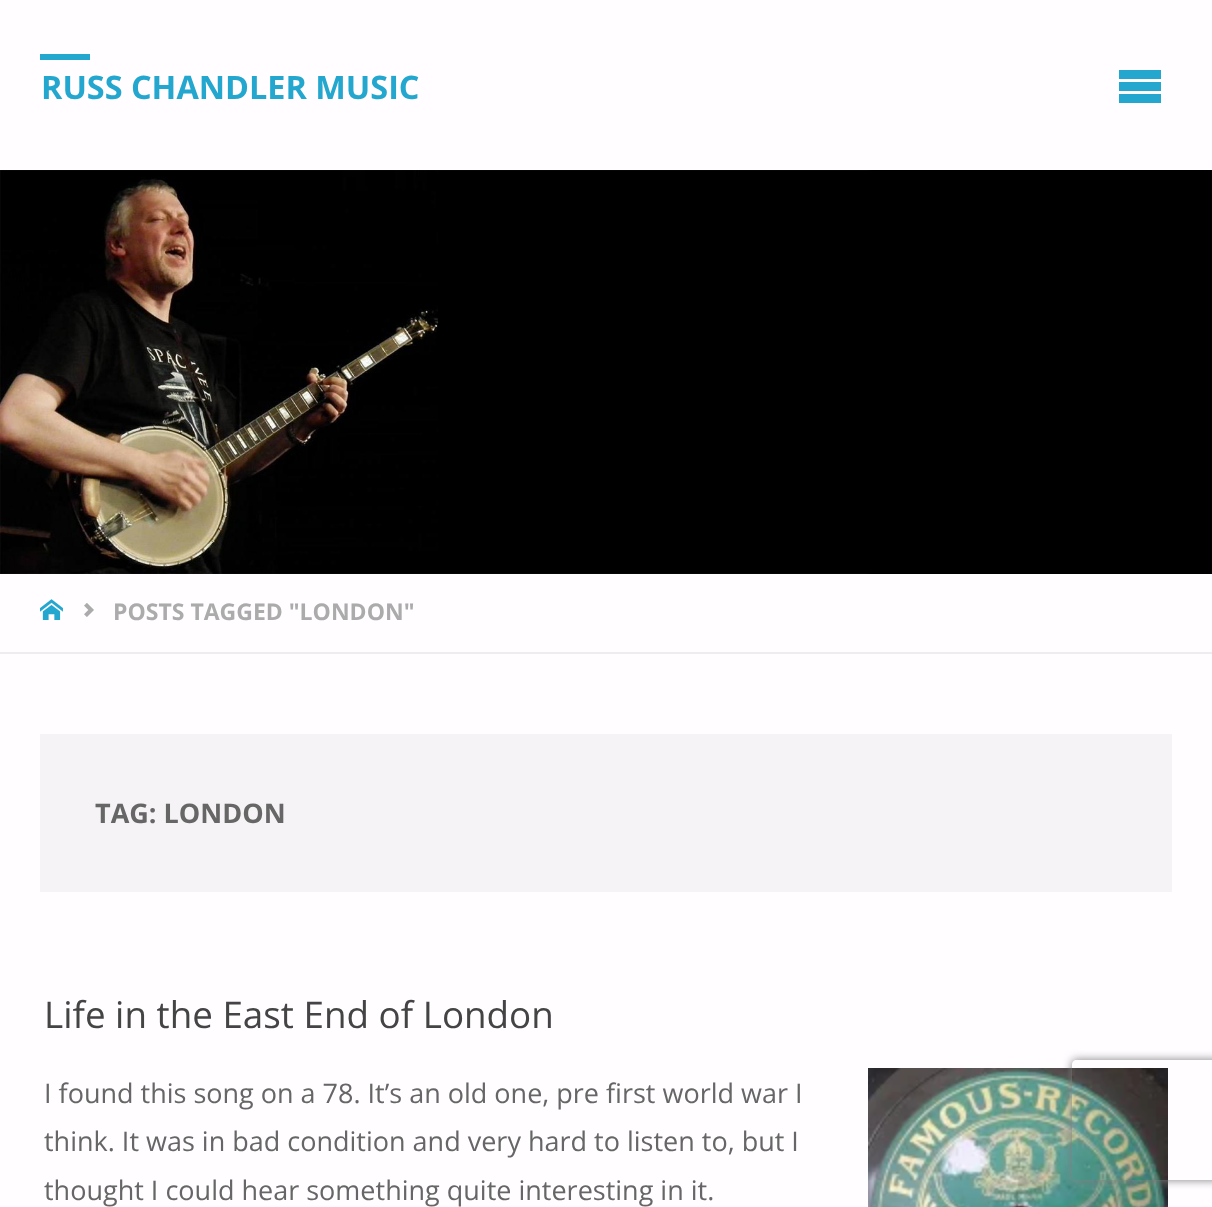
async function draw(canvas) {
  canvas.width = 1212;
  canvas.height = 1207;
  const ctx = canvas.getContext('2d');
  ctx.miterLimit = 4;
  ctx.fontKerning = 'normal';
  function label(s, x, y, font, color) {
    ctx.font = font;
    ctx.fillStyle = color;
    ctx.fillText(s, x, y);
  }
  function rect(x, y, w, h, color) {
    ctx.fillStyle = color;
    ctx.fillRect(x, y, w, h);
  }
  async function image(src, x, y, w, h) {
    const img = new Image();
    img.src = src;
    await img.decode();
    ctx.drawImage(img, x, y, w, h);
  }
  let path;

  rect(0, 0, 1212, 1207, '#fffdff');
  rect(40, 54, 50, 6, '#24a7cf');
  label('RUSS CHANDLER MUSIC', 41, 99, 'bold 32.4px Open Sans', '#24a7cf');
  path = new Path2D('M1119 70H1161V79H1119ZM1119 82H1161V91H1119ZM1119 94H1161V103H1119Z');
  ctx.fill(path);
  await image('assets/img1.png', 0, 170, 1212, 404);
  rect(0, 652, 1212, 2, '#eeecee');
  await image('assets/img2.png', 40, 599, 23, 21);
  await image('assets/img3.png', 84, 603, 10, 14);
  label('POSTS TAGGED "LONDON"', 113, 620, 'bold 23px Open Sans', '#ababab');
  rect(40, 734, 1132, 158, '#f5f3f5');
  label('TAG: LONDON', 95, 823, 'bold 27px Open Sans', '#666');
  label('Life in the East End of London', 44, 1028, '36.8px Open Sans', '#444');
  label('I found this song on a 78. It’s an old one, pre first world war I', 44, 1103, '27px Open Sans', '#666');
  await image('assets/img4.png', 868, 1068, 300, 139);
  label('think. It was in bad condition and very hard to listen to, but I', 44, 1151, '27px Open Sans', '#666');
  label('thought I could hear something quite interesting in it.', 44, 1200, '27px Open Sans', '#666');
  ctx.save();
  path = new Path2D('M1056 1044H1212V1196H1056ZM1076 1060H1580C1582 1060 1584 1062 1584 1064V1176C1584 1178 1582 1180 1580 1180H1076C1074 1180 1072 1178 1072 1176V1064C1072 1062 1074 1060 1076 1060Z');
  ctx.clip(path, 'evenodd');
  ctx.fillStyle = '#808080';
  ctx.filter = 'blur(5px)';
  ctx.beginPath();
  ctx.roundRect(1072, 1060, 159, 120, 4);
  ctx.fill();
  ctx.filter = 'none';
  ctx.restore();
}

draw(document.querySelector('canvas'));
